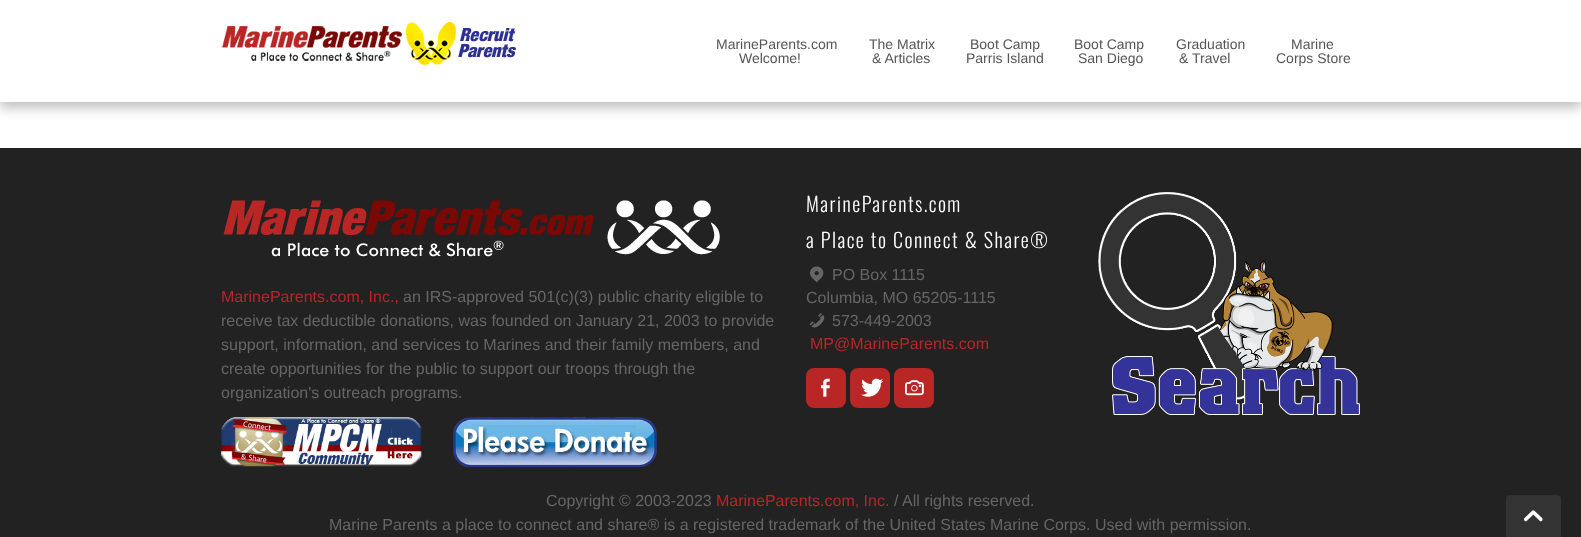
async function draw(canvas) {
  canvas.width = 1581;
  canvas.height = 537;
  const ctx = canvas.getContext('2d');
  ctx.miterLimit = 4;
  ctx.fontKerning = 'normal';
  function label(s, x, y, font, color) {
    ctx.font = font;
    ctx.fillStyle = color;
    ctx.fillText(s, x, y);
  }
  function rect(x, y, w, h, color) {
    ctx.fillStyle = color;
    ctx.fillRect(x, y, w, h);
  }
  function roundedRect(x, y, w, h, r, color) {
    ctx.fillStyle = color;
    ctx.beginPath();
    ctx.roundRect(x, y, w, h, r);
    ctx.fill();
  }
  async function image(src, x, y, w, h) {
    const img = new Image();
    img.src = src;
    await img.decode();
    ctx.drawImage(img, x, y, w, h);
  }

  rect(0, 0, 1581, 537, '#fff');
  ctx.fillStyle = '#00000040';
  ctx.filter = 'blur(6px)';
  ctx.beginPath();
  ctx.rect(0, 6, 1581, 102);
  ctx.fill();
  ctx.filter = 'none';
  rect(0, 0, 1581, 102, '#fff');
  await image('assets/img1.png', 221, 22, 295, 43);
  label('MarineParents.com', 716, 49, '14px Liberation Sans', '#555');
  label('Welcome!', 739, 63, '14px Liberation Sans', '#555');
  label('The Matrix', 869, 49, '14px Liberation Sans', '#555');
  label('& Articles', 872, 63, '14px Liberation Sans', '#555');
  label('Boot Camp', 970, 49, '14px Liberation Sans', '#555');
  label('Parris Island', 966, 63, '14px Liberation Sans', '#555');
  label('Boot Camp', 1074, 49, '14px Liberation Sans', '#555');
  label('San Diego', 1078, 63, '14px Liberation Sans', '#555');
  label('Graduation', 1176, 49, '14px Liberation Sans', '#555');
  label('& Travel', 1179, 63, '14px Liberation Sans', '#555');
  label('Marine', 1291, 49, '14px Liberation Sans', '#555');
  label('Corps Store', 1276, 63, '14px Liberation Sans', '#555');
  rect(0, 148, 1581, 389, '#222');
  await image('assets/img2.png', 223, 200, 497, 57);
  label('MarineParents.com, Inc.,', 221, 302, '16px Liberation Sans', '#b92626');
  label('an IRS-approved 501(c)(3) public charity eligible to', 403, 302, '16px Liberation Sans', '#666');
  label('receive tax deductible donations, was founded on January 21, 2003 to provide', 221, 326, '16px Liberation Sans', '#666');
  label('support, information, and services to Marines and their family members, and', 221, 350, '16px Liberation Sans', '#666');
  label('create opportunities for the public to support our troops through the', 221, 374, '16px Liberation Sans', '#666');
  label('organization\'s outreach programs.', 221, 398, '16px Liberation Sans', '#666');
  await image('assets/img3.png', 221, 417, 201, 50);
  await image('assets/img4.png', 453, 417, 204, 50);
  ctx.letterSpacing = '1.5px';
  label('MarineParents.com', 806, 212, '300 20px Oswald', '#fff');
  label('a Place to Connect & Share®', 806, 248, '300 20px Oswald', '#fff');
  await image('assets/img5.png', 810, 266, 14, 17);
  ctx.letterSpacing = '0px';
  label('PO Box 1115', 832, 280, '16px Liberation Sans', '#666');
  label('Columbia, MO 65205-1115', 806, 303, '16px Liberation Sans', '#666');
  await image('assets/img6.png', 810, 313, 15, 15);
  label('573-449-2003', 832, 326, '16px Liberation Sans', '#666');
  label('MP@MarineParents.com', 810, 349, '16px Liberation Sans', '#b92626');
  roundedRect(806, 368, 40, 40, 8, '#b92626');
  await image('assets/img7.png', 821, 378, 9, 19);
  roundedRect(850, 368, 40, 40, 8, '#b92626');
  await image('assets/img8.png', 861, 378, 22, 19);
  roundedRect(894, 368, 40, 40, 8, '#b92626');
  await image('assets/img9.png', 905, 380, 19, 16);
  await image('assets/img10.png', 1098, 192, 262, 223);
  label('Copyright © 2003-2023', 546, 506, '16px Liberation Sans', '#666');
  label('MarineParents.com, Inc.', 716, 506, '16px Liberation Sans', '#b92626');
  label('/ All rights reserved.', 894, 506, '16px Liberation Sans', '#666');
  label('Marine Parents a place to connect and share® is a registered trademark of the United States Marine Corps. Used with permission.', 329, 530, '16px Liberation Sans', '#666');
  ctx.fillStyle = '#333';
  ctx.beginPath();
  ctx.roundRect(1506, 495, 55, 42, [4, 4, 0, 0]);
  ctx.fill();
  await image('assets/img11.png', 1524, 510, 19, 12);
}

draw(document.querySelector('canvas'));
